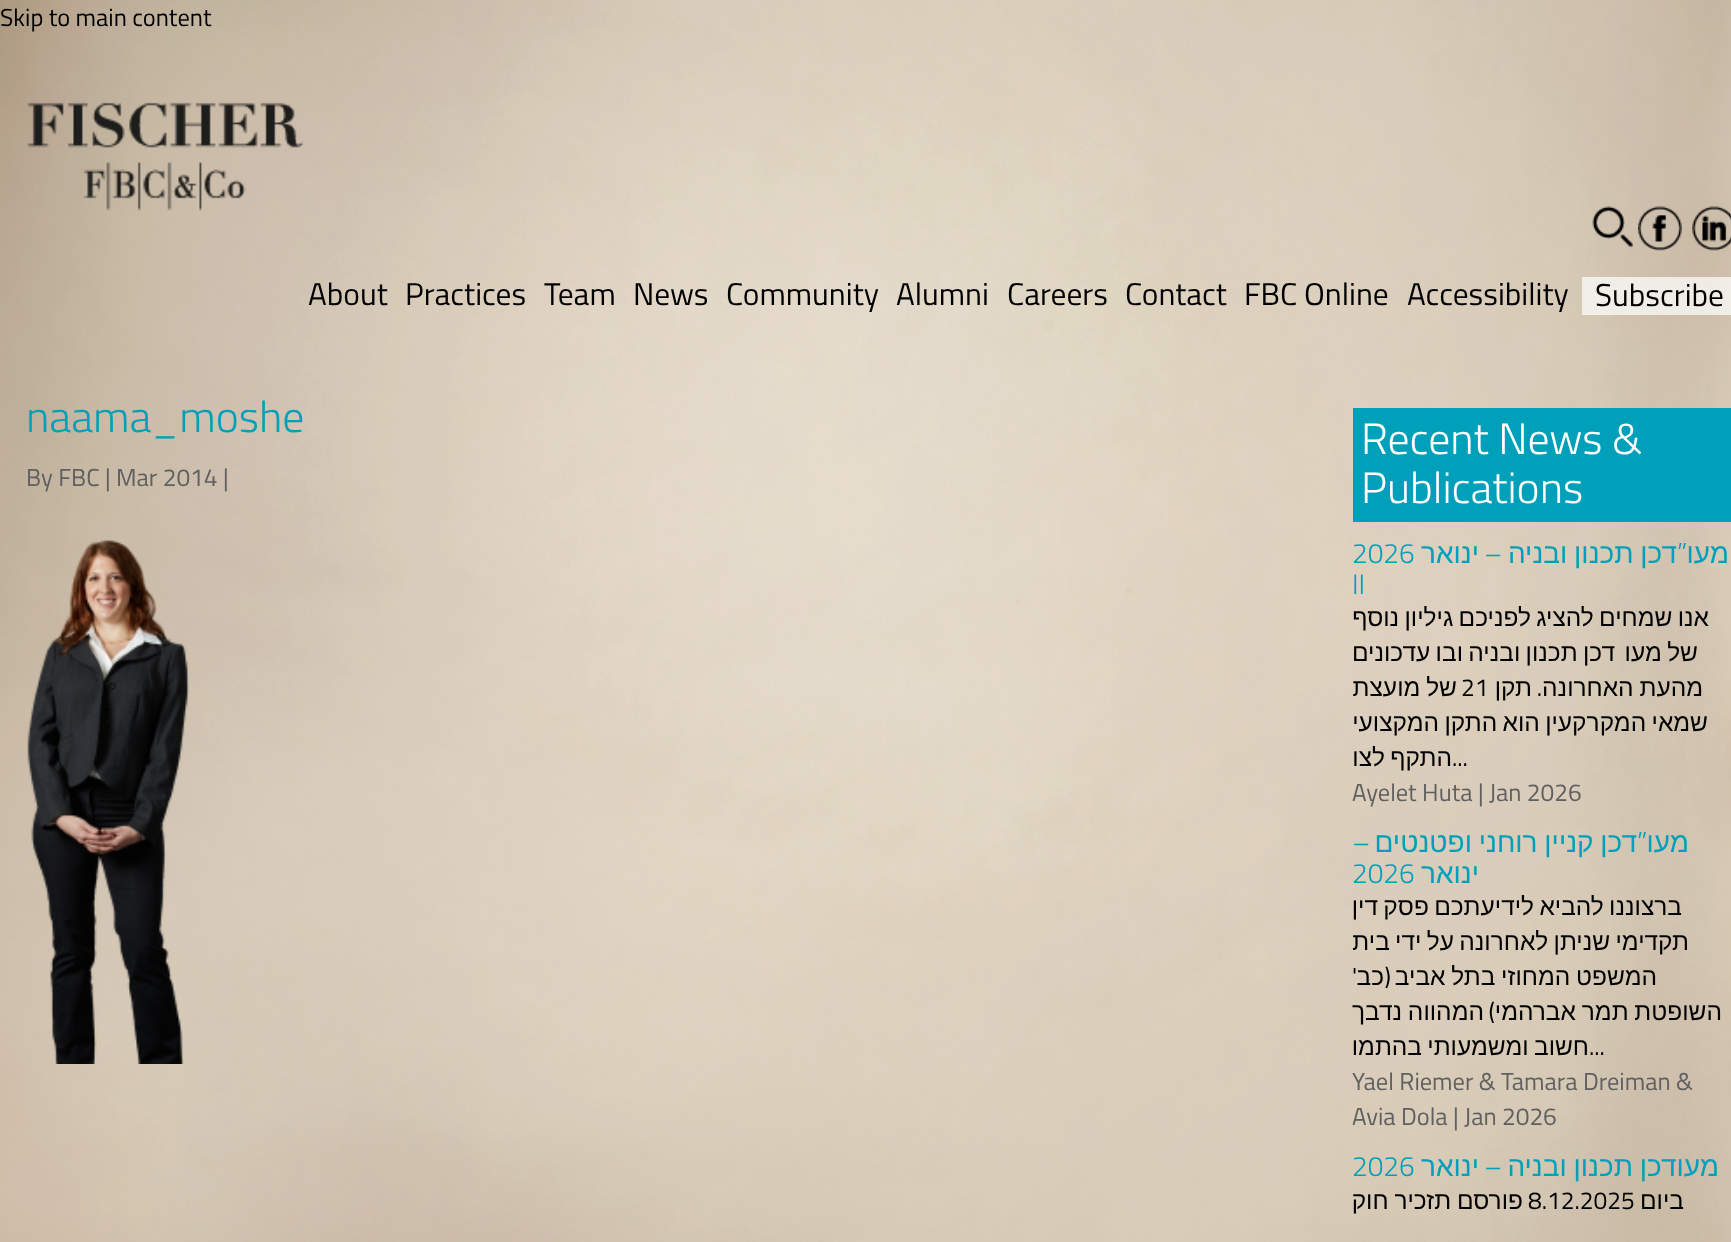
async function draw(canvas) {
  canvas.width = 1731;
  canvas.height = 1242;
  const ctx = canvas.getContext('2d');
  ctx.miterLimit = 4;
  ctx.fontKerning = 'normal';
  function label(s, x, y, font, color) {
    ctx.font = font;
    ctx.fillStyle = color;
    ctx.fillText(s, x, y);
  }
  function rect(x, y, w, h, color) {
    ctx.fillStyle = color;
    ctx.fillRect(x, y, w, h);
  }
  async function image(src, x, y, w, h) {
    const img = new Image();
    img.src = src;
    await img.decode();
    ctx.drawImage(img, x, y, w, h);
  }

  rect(0, 0, 1731, 1242, '#fff');
  await image('assets/img1.png', 0, 0, 1731, 1242);
  label('Skip to main content', 0, 26, '24.5px Titillium Web', '#000');
  await image('assets/img2.png', 27, 102, 277, 109);
  await image('assets/img3.png', 1692, 206, 39, 45);
  await image('assets/img4.png', 1638, 206, 44, 45);
  await image('assets/img5.png', 1592, 206, 41, 41);
  rect(1582, 277, 149, 38, '#ffffffb3');
  label('Subscribe', 1595, 306, '31.5px Titillium Web', '#000');
  label('Accessibility', 1407, 305, '31.5px Titillium Web', '#000');
  label('FBC Online', 1244, 305, '31.5px Titillium Web', '#000');
  label('Contact', 1125, 305, '31.5px Titillium Web', '#000');
  label('Careers', 1007, 305, '31.5px Titillium Web', '#000');
  label('Alumni', 896, 305, '31.5px Titillium Web', '#000');
  label('Community', 726, 305, '31.5px Titillium Web', '#000');
  label('News', 633, 305, '31.5px Titillium Web', '#000');
  label('Team', 544, 305, '31.5px Titillium Web', '#000');
  label('Practices', 405, 305, '31.5px Titillium Web', '#000');
  label('About', 308, 305, '31.5px Titillium Web', '#000');
  rect(1353, 408, 378, 114, '#00a0ba');
  label('Recent News &', 1361, 454, '300 43.75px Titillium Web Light', '#fff');
  label('Publications', 1361, 503, '300 43.75px Titillium Web Light', '#fff');
  ctx.direction = 'rtl';
  label('מעו', 1729, 563, '28px Liberation Sans', '#00a0ba');
  label('”', 1687, 563, '300 28px Titillium Web Light', '#00a0ba');
  ctx.wordSpacing = '-1px';
  label('דכן תכנון ובניה', 1677, 563, '28px Liberation Sans', '#00a0ba');
  ctx.wordSpacing = '0px';
  label('–', 1502, 563, '300 28px Titillium Web Light', '#00a0ba');
  label('ינואר', 1479, 563, '28px Liberation Sans', '#00a0ba');
  ctx.direction = 'ltr';
  label('2026', 1352, 563, '300 28px Titillium Web Light', '#00a0ba');
  label('II', 1352, 594, '300 28px Titillium Web Light', '#00a0ba');
  ctx.wordSpacing = '-1.5px';
  ctx.direction = 'rtl';
  label('אנו שמחים להציג לפניכם גיליון נוסף', 1709, 626, '24.5px Liberation Sans', '#000');
  label('של מעו', 1698, 661, '24.5px Liberation Sans', '#000');
  label('דכן תכנון ובניה ובו עדכונים', 1615, 661, '24.5px Liberation Sans', '#000');
  ctx.wordSpacing = '-1px';
  label('מהעת האחרונה', 1703, 696, '24.5px Liberation Sans', '#000');
  ctx.wordSpacing = '0px';
  label('.', 1542, 696, '24.5px Titillium Web', '#000');
  label('תקן', 1532, 696, '24.5px Liberation Sans', '#000');
  ctx.direction = 'ltr';
  label('21', 1461, 696, '24.5px Titillium Web', '#000');
  ctx.wordSpacing = '-1px';
  ctx.direction = 'rtl';
  label('של מועצת', 1457, 696, '24.5px Liberation Sans', '#000');
  ctx.wordSpacing = '-1.5px';
  label('שמאי המקרקעין הוא התקן המקצועי', 1708, 731, '24.5px Liberation Sans', '#000');
  ctx.wordSpacing = '0px';
  ctx.direction = 'ltr';
  label('...', 1452, 766, '24.5px Titillium Web', '#000');
  ctx.wordSpacing = '-1.5px';
  ctx.direction = 'rtl';
  label('התקף לצו', 1452, 766, '24.5px Liberation Sans', '#000');
  ctx.wordSpacing = '0px';
  ctx.direction = 'ltr';
  label('Ayelet Huta | Jan 2026', 1352, 801, '24.5px Titillium Web', '#606060');
  ctx.direction = 'rtl';
  label('מעו', 1689, 852, '28px Liberation Sans', '#00a0ba');
  ctx.wordSpacing = '-1px';
  label('דכן קניין רוחני ופטנטים', 1637, 852, '28px Liberation Sans', '#00a0ba');
  ctx.wordSpacing = '0px';
  label('”', 1647, 852, '300 28px Titillium Web Light', '#00a0ba');
  label('–', 1370, 852, '300 28px Titillium Web Light', '#00a0ba');
  label('ינואר', 1479, 883, '28px Liberation Sans', '#00a0ba');
  ctx.direction = 'ltr';
  label('2026', 1352, 883, '300 28px Titillium Web Light', '#00a0ba');
  ctx.wordSpacing = '-1.5px';
  ctx.direction = 'rtl';
  label('ברצוננו להביא לידיעתכם פסק דין', 1682, 915, '24.5px Liberation Sans', '#000');
  label('תקדימי שניתן לאחרונה על ידי בית', 1689, 950, '24.5px Liberation Sans', '#000');
  ctx.wordSpacing = '-1px';
  label('המשפט המחוזי בתל אביב', 1657, 985, '24.5px Liberation Sans', '#000');
  ctx.wordSpacing = '0px';
  label('(', 1391, 985, '24.5px Titillium Web', '#000');
  label('כב', 1384, 985, '24.5px Liberation Sans', '#000');
  label('\'', 1357, 985, '24.5px Titillium Web', '#000');
  ctx.wordSpacing = '-1px';
  label('השופטת תמר אברהמי', 1722, 1020, '24.5px Liberation Sans', '#000');
  ctx.wordSpacing = '0px';
  label(')', 1495, 1020, '24.5px Titillium Web', '#000');
  ctx.wordSpacing = '-1px';
  label('המהווה נדבך', 1484, 1020, '24.5px Liberation Sans', '#000');
  ctx.wordSpacing = '-1.5px';
  label('חשוב ומשמעותי בהתמו', 1589, 1055, '24.5px Liberation Sans', '#000');
  ctx.wordSpacing = '0px';
  ctx.direction = 'ltr';
  label('...', 1589, 1055, '24.5px Titillium Web', '#000');
  label('Yael Riemer & Tamara Dreiman &', 1352, 1090, '24.5px Titillium Web', '#606060');
  label('Avia Dola | Jan 2026', 1352, 1125, '24.5px Titillium Web', '#606060');
  ctx.wordSpacing = '-1px';
  ctx.direction = 'rtl';
  label('מעודכן תכנון ובניה', 1719, 1176, '28px Liberation Sans', '#00a0ba');
  ctx.wordSpacing = '0px';
  label('–', 1502, 1176, '300 28px Titillium Web Light', '#00a0ba');
  label('ינואר', 1479, 1176, '28px Liberation Sans', '#00a0ba');
  ctx.direction = 'ltr';
  label('2026', 1352, 1176, '300 28px Titillium Web Light', '#00a0ba');
  ctx.direction = 'rtl';
  label('ביום', 1684, 1209, '24.5px Liberation Sans', '#000');
  ctx.direction = 'ltr';
  label('8.12.2025', 1528, 1209, '24.5px Titillium Web', '#000');
  ctx.wordSpacing = '-1px';
  ctx.direction = 'rtl';
  label('פורסם תזכיר חוק', 1523, 1209, '24.5px Liberation Sans', '#000');
  ctx.wordSpacing = '0px';
  ctx.direction = 'ltr';
  label('naama_moshe', 26, 432, '300 43.75px Titillium Web Light', '#00a0ba');
  label('By FBC | Mar 2014 |', 26, 486, '24.5px Titillium Web', '#606060');
  await image('assets/img6.png', 27, 539, 162, 525);
}

draw(document.querySelector('canvas'));
